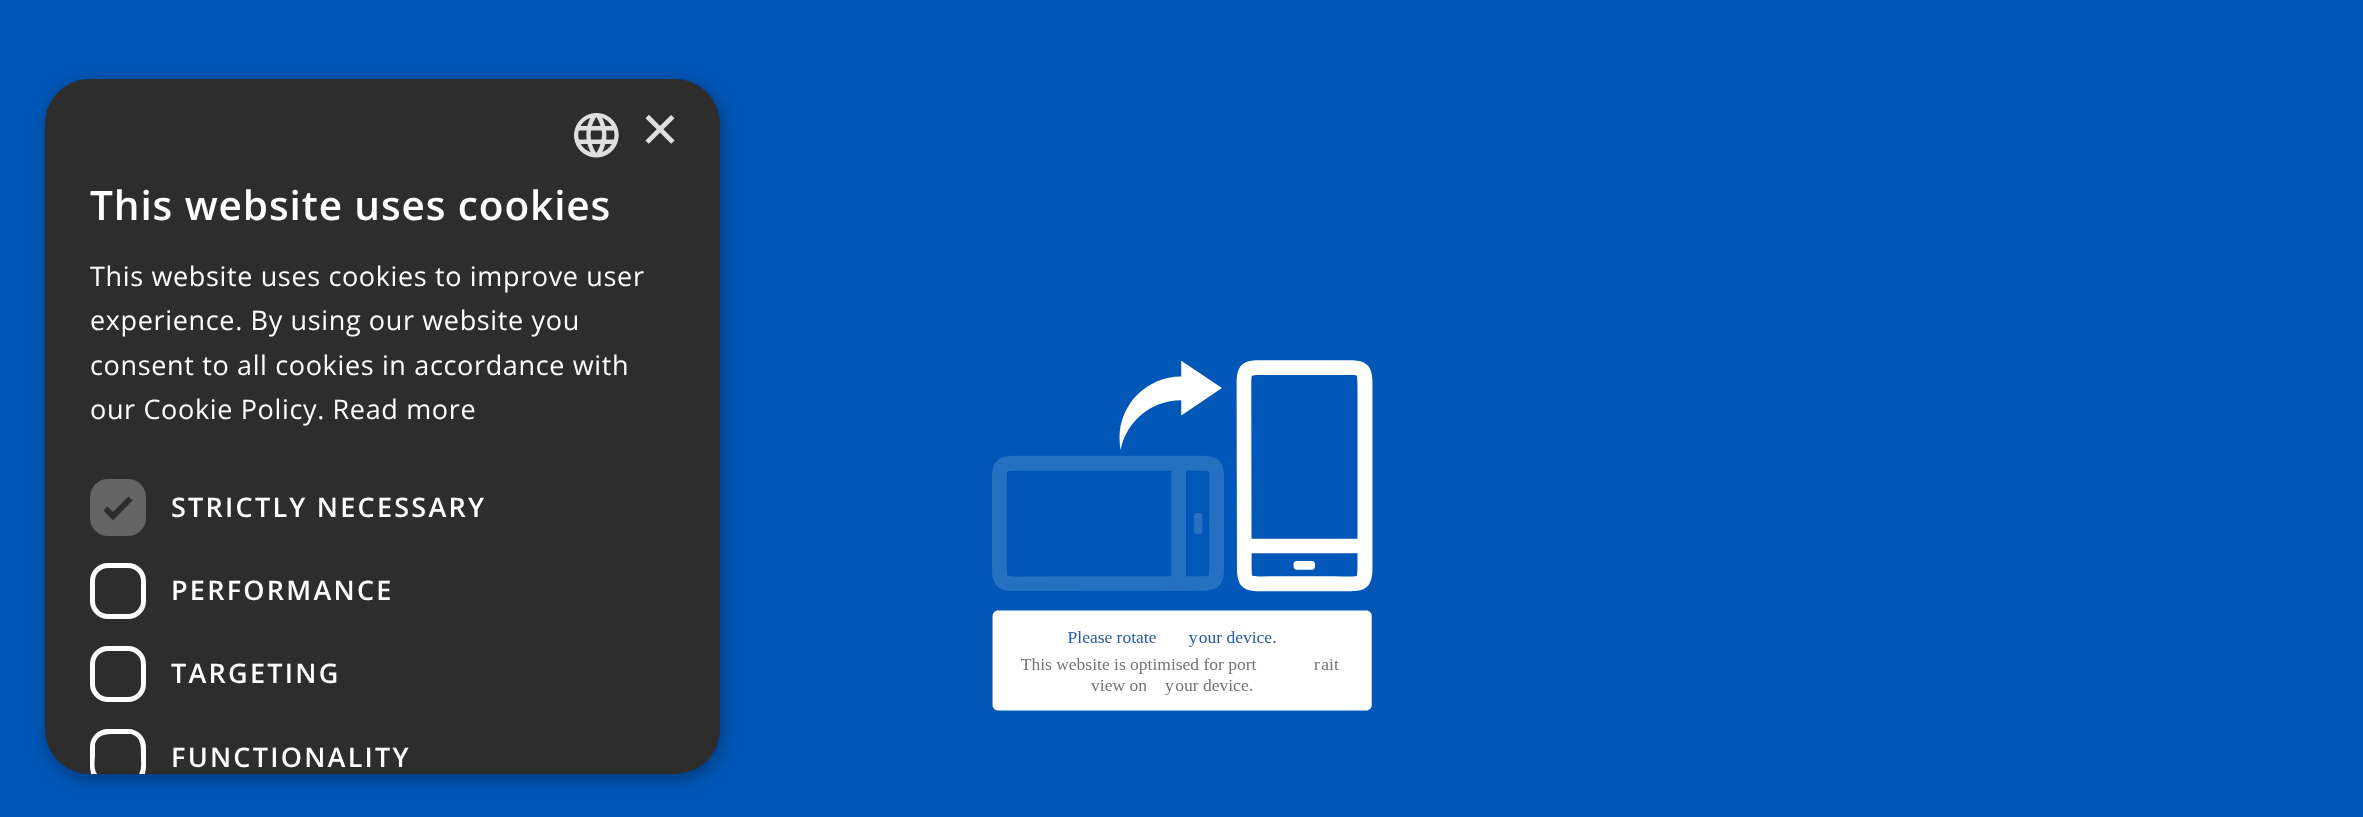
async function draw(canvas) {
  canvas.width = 2363;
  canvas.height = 817;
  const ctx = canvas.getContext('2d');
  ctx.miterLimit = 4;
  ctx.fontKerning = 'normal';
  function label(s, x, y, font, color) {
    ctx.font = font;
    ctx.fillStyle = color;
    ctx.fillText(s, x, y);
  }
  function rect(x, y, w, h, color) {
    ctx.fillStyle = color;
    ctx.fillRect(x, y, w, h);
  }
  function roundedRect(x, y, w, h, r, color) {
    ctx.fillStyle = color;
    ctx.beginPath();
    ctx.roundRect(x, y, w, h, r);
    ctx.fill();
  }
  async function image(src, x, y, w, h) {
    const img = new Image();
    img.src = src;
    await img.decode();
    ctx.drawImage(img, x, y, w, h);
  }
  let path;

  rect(0, 0, 2363, 817, '#0057b8');
  ctx.fillStyle = '#00000059';
  ctx.filter = 'blur(9px)';
  ctx.beginPath();
  ctx.roundRect(47, 83, 675, 696, 45);
  ctx.fill();
  ctx.filter = 'none';
  roundedRect(45, 79, 675, 695, 45, '#2d2d2d');
  await image('assets/img1.png', 574, 113, 45, 45);
  label('×', 641, 151, '65px Liberation Sans', '#e0e0e0');
  ctx.letterSpacing = '0.9px';
  label('This website uses cookies', 90, 220, '600 40.5px Open Sans', '#fff');
  ctx.letterSpacing = '0.65px';
  label('This website uses cookies to improve user', 90, 286, '27px Open Sans', '#fff');
  label('experience. By using our website you', 90, 330, '27px Open Sans', '#fff');
  label('consent to all cookies in accordance with', 90, 375, '27px Open Sans', '#fff');
  label('our Cookie Policy. Read more', 90, 419, '27px Open Sans', '#fff');
  roundedRect(90, 479, 56, 57, 18, '#646464');
  path = new Path2D('M105.5 508.5L113 516L130.5 498.5');
  ctx.strokeStyle = '#2d2d2d';
  ctx.lineWidth = 5.9;
  ctx.stroke(path);
  ctx.letterSpacing = '2.25px';
  label('STRICTLY NECESSARY', 171, 517, '600 27px Open Sans', '#fff');
  ctx.beginPath();
  ctx.roundRect(92.5, 565.5, 51, 51, 15.5);
  ctx.strokeStyle = '#fff';
  ctx.lineWidth = 5;
  ctx.stroke();
  label('PERFORMANCE', 171, 600, '600 27px Open Sans', '#fff');
  ctx.beginPath();
  ctx.roundRect(92.5, 648.5, 51, 51, 15.5);
  ctx.stroke();
  label('TARGETING', 171, 683, '600 27px Open Sans', '#fff');
  path = new Path2D('M108 729C98 729 90 737 90 747V767C90 769 91 772 91 774H97C93 768 95 760 95 754V744C98 733 109 734 118 734H131C142 737 141 748 141 757C141 763 142 769 139 774H145C145 772 146 769 146 767V747C146 737 138 729 128 729Z');
  ctx.fill(path);
  label('FUNCTIONALITY', 171, 767, '600 27px Open Sans', '#fff');
  await image('assets/img2.png', 992, 360, 381, 351);
}

draw(document.querySelector('canvas'));
